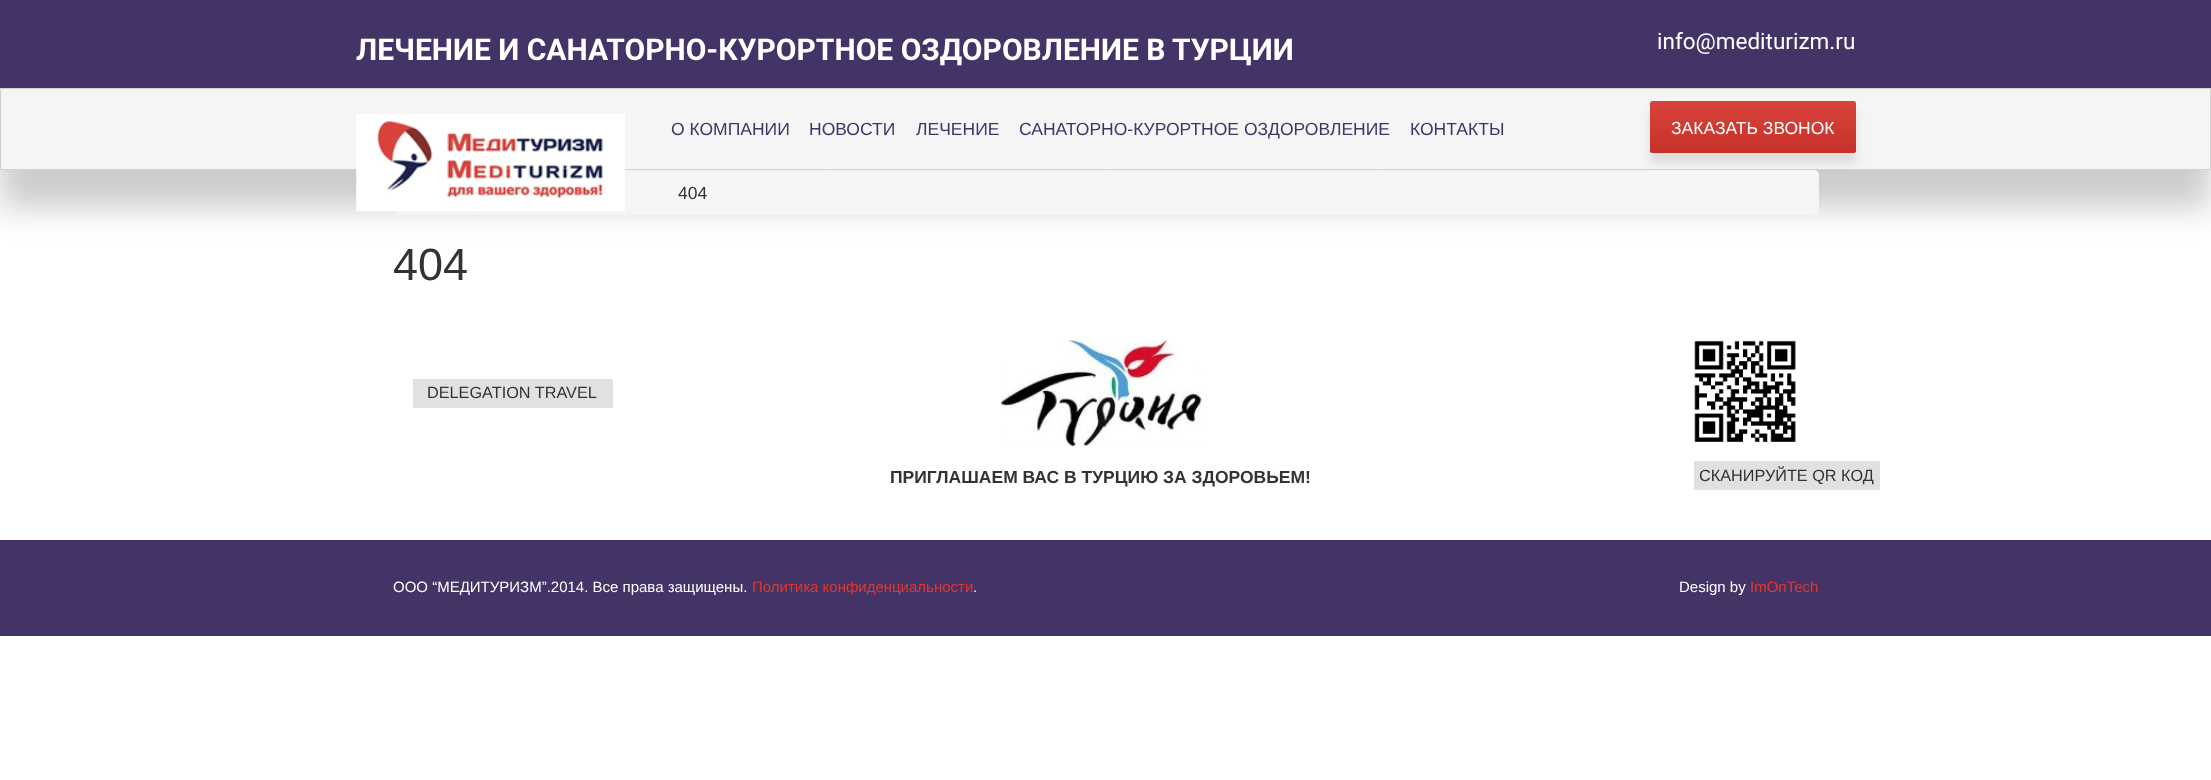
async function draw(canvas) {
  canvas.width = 2211;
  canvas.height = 780;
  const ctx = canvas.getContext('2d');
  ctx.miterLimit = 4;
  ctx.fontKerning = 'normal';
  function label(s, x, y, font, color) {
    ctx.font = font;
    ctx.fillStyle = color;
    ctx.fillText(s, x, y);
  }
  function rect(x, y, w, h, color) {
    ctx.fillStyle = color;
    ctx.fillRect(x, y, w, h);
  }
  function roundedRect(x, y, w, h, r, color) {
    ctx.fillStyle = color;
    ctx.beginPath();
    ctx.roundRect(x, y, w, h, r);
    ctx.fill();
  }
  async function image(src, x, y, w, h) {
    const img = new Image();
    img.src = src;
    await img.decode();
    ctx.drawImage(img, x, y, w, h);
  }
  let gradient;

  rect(0, 0, 2211, 780, '#fff');
  rect(0, 0, 2211, 88, '#433367');
  label('ЛЕЧЕНИЕ И САНАТОРНО-КУРОРТНОЕ ОЗДОРОВЛЕНИЕ В ТУРЦИИ', 356, 60, 'bold 30px Roboto', '#fff');
  label('info@mediturizm.ru', 1657, 49, '22.5px Roboto', '#fff');
  ctx.fillStyle = '#00000033';
  ctx.filter = 'blur(16px)';
  ctx.beginPath();
  ctx.rect(0, 125, 2211, 83);
  ctx.fill();
  ctx.filter = 'none';
  ctx.fillStyle = '#f5f5f5';
  ctx.beginPath();
  ctx.rect(0.5, 88.5, 2210, 81);
  ctx.fill();
  ctx.strokeStyle = '#d1d1d1';
  ctx.stroke();
  roundedRect(394, 170, 1425, 45, 5, '#f5f5f5');
  await image('assets/img1.png', 356, 114, 269, 98);
  label('О КОМПАНИИ', 671, 135, '17.5px Liberation Sans', '#433367');
  label('НОВОСТИ', 809, 135, '17.5px Liberation Sans', '#433367');
  label('ЛЕЧЕНИЕ', 916, 135, '17.5px Liberation Sans', '#433367');
  label('САНАТОРНО-КУРОРТНОЕ ОЗДОРОВЛЕНИЕ', 1019, 135, '17.5px Liberation Sans', '#433367');
  label('КОНТАКТЫ', 1410, 135, '17.5px Liberation Sans', '#433367');
  ctx.fillStyle = '#0000001a';
  ctx.filter = 'blur(5px)';
  ctx.beginPath();
  ctx.roundRect(1650, 111, 206, 52, 2.5);
  ctx.fill();
  ctx.filter = 'none';
  gradient = ctx.createLinearGradient(1753, 153, 1753, 101);
  gradient.addColorStop(0, '#c5322a');
  gradient.addColorStop(1, '#d9433b');
  ctx.fillStyle = gradient;
  ctx.beginPath();
  ctx.roundRect(1650, 101, 206, 52, 2.5);
  ctx.fill();
  label('ЗАКАЗАТЬ ЗВОНОК', 1671, 134, '17.5px Liberation Sans', '#fff');
  label('404', 678, 199, '17.5px Liberation Sans', '#333');
  label('404', 393, 280, '45px Liberation Sans', '#333');
  rect(413, 379, 200, 29, '#e1e1e1');
  label('DELEGATION TRAVEL', 427, 398, '16.25px Liberation Sans', '#333');
  await image('assets/img2.png', 1001, 340, 201, 107);
  label('ПРИГЛАШАЕМ ВАС В ТУРЦИЮ ЗА ЗДОРОВЬЕМ!', 890, 483, 'bold 17.5px Liberation Sans', '#333');
  await image('assets/img3.png', 1694, 340, 102, 102);
  rect(1694, 461, 186, 29, '#e1e1e1');
  label('СКАНИРУЙТЕ QR КОД', 1699, 481, '16.25px Liberation Sans', '#333');
  rect(0, 540, 2211, 96, '#433367');
  label('ООО “МЕДИТУРИЗМ”.2014. Все права защищены.', 393, 592, '15px Liberation Sans', '#fff');
  label('Политика конфиденциальности', 752, 592, '15px Liberation Sans', '#e5362d');
  label('.', 973, 592, '15px Liberation Sans', '#fff');
  label('Design by', 1679, 592, '15px Liberation Sans', '#fff');
  label('ImOnTech', 1750, 592, '15px Liberation Sans', '#e5362d');
}

draw(document.querySelector('canvas'));
